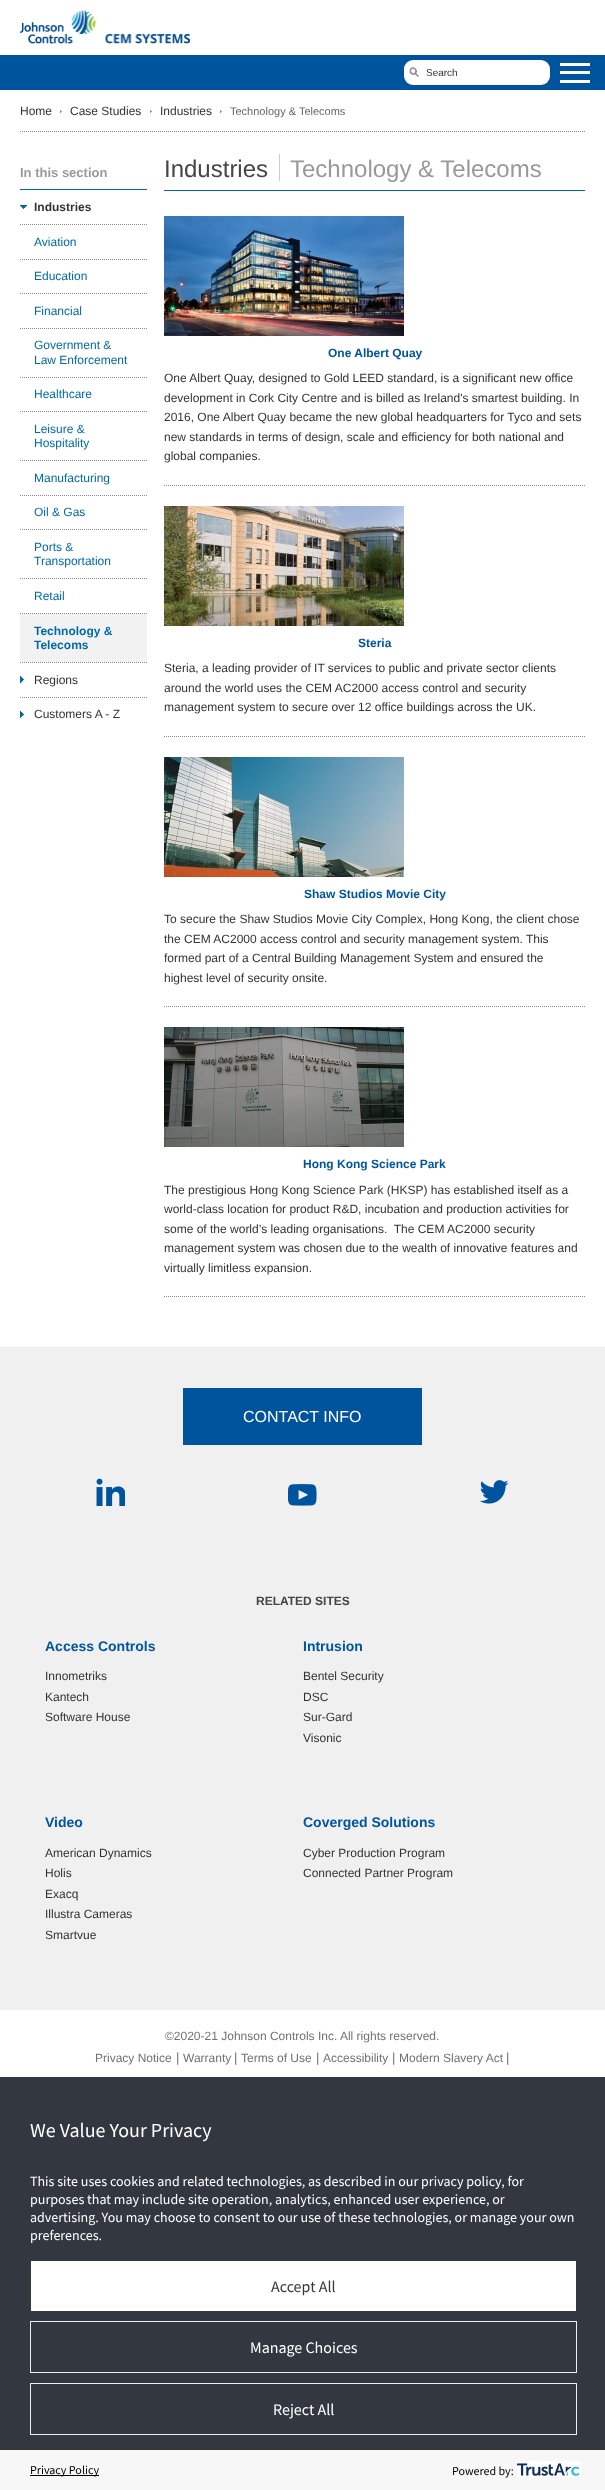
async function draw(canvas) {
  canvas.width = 605;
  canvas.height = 2490;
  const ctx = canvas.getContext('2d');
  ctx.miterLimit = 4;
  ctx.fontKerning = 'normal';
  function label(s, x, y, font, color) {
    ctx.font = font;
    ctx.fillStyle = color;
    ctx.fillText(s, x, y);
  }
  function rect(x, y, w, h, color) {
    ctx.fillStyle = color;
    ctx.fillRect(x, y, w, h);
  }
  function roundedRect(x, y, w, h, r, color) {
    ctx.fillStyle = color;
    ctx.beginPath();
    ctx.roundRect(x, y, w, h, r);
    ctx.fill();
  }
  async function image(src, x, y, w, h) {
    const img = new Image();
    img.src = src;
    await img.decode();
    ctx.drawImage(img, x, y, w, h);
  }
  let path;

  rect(0, 0, 605, 2490, '#fff');
  await image('assets/img1.png', 20, 10, 170, 34);
  rect(0, 55, 605, 35, '#00549e');
  roundedRect(404, 60, 146, 25, 9, '#fff');
  await image('assets/img2.png', 409, 67, 10, 10);
  label('Search', 426, 76, '10px Liberation Sans', '#333');
  rect(560, 63, 30, 3, '#fff');
  rect(560, 71, 30, 3, '#fff');
  rect(560, 80, 30, 3, '#fff');
  path = new Path2D('M20 131.5H585');
  ctx.strokeStyle = '#8b8989';
  ctx.setLineDash([1, 1]);
  ctx.stroke(path);
  label('Home', 20, 115, '12px Liberation Sans', '#333');
  await image('assets/img3.png', 60, 110, 2, 3);
  label('Case Studies', 70, 115, '12px Liberation Sans', '#333');
  await image('assets/img3.png', 150, 110, 2, 3);
  label('Industries', 160, 115, '12px Liberation Sans', '#333');
  await image('assets/img3.png', 220, 110, 2, 3);
  label('Technology & Telecoms', 230, 115, '11px Liberation Sans', '#666');
  rect(20, 189, 127, 1, '#0069aa');
  label('In this section', 20, 177, 'bold 13px Liberation Sans', '#999');
  await image('assets/img4.png', 20, 205, 7, 4);
  label('Industries', 34, 211, 'bold 12px Liberation Sans', '#333');
  path = new Path2D('M20 224.5H147');
  ctx.stroke(path);
  label('Aviation', 34, 246, '12px Liberation Sans', '#0069aa');
  path = new Path2D('M20 259.5H147');
  ctx.stroke(path);
  label('Education', 34, 280, '12px Liberation Sans', '#0069aa');
  path = new Path2D('M20 293.5H147');
  ctx.stroke(path);
  label('Financial', 34, 315, '12px Liberation Sans', '#0069aa');
  path = new Path2D('M20 328.5H147');
  ctx.stroke(path);
  label('Government &', 34, 349, '12px Liberation Sans', '#0069aa');
  label('Law Enforcement', 34, 364, '12px Liberation Sans', '#0069aa');
  path = new Path2D('M20 377.5H147');
  ctx.stroke(path);
  label('Healthcare', 34, 398, '12px Liberation Sans', '#0069aa');
  path = new Path2D('M20 411.5H147');
  ctx.stroke(path);
  label('Leisure &', 34, 433, '12px Liberation Sans', '#0069aa');
  label('Hospitality', 34, 447, '12px Liberation Sans', '#0069aa');
  path = new Path2D('M20 460.5H147');
  ctx.stroke(path);
  label('Manufacturing', 34, 482, '12px Liberation Sans', '#0069aa');
  path = new Path2D('M20 495.5H147');
  ctx.stroke(path);
  label('Oil & Gas', 34, 516, '12px Liberation Sans', '#0069aa');
  path = new Path2D('M20 529.5H147');
  ctx.stroke(path);
  label('Ports &', 34, 551, '12px Liberation Sans', '#0069aa');
  label('Transportation', 34, 565, '12px Liberation Sans', '#0069aa');
  path = new Path2D('M20 578.5H147');
  ctx.stroke(path);
  label('Retail', 34, 600, '12px Liberation Sans', '#0069aa');
  path = new Path2D('M20 613.5H147');
  ctx.stroke(path);
  rect(20, 614, 127, 48, '#f2f2f2');
  label('Technology &', 34, 635, 'bold 12px Liberation Sans', '#0069aa');
  label('Telecoms', 34, 649, 'bold 12px Liberation Sans', '#0069aa');
  path = new Path2D('M20 662.5H147');
  ctx.stroke(path);
  await image('assets/img5.png', 20, 676, 4, 8);
  label('Regions', 34, 684, '12px Liberation Sans', '#333');
  path = new Path2D('M20 697.5H147');
  ctx.stroke(path);
  await image('assets/img6.png', 20, 711, 4, 7);
  label('Customers A - Z', 34, 718, '12px Liberation Sans', '#333');
  rect(164, 190, 421, 1, '#0069aa');
  label('Industries', 164, 177, '24px Liberation Sans', '#454545');
  rect(279, 154, 1, 27, '#ccc');
  label('Technology & Telecoms', 290, 177, '24px Liberation Sans', '#999');
  path = new Path2D('M164 485.5H585');
  ctx.stroke(path);
  await image('assets/img7.png', 164, 216, 240, 120);
  label('One Albert Quay', 328, 357, 'bold 12px Liberation Sans', '#00549e');
  label('One Albert Quay, designed to Gold LEED standard, is a significant new office', 164, 382, '12px Liberation Sans', '#333');
  label('development in Cork City Centre and is billed as Ireland\'s smartest building. In', 164, 402, '12px Liberation Sans', '#333');
  label('2016, One Albert Quay became the new global headquarters for Tyco and sets', 164, 421, '12px Liberation Sans', '#333');
  label('new standards in terms of design, scale and efficiency for both national and', 164, 441, '12px Liberation Sans', '#333');
  label('global companies.', 164, 460, '12px Liberation Sans', '#333');
  path = new Path2D('M164 736.5H585');
  ctx.stroke(path);
  await image('assets/img8.png', 164, 506, 240, 120);
  label('Steria', 358, 647, 'bold 12px Liberation Sans', '#00549e');
  label('Steria, a leading provider of IT services to public and private sector clients', 164, 672, '12px Liberation Sans', '#333');
  label('around the world uses the CEM AC2000 access control and security', 164, 692, '12px Liberation Sans', '#333');
  label('management system to secure over 12 office buildings across the UK.', 164, 711, '12px Liberation Sans', '#333');
  path = new Path2D('M164 1006.5H585');
  ctx.stroke(path);
  await image('assets/img9.png', 164, 757, 240, 120);
  label('Shaw Studios Movie City', 304, 898, 'bold 12px Liberation Sans', '#00549e');
  label('To secure the Shaw Studios Movie City Complex, Hong Kong, the client chose', 164, 923, '12px Liberation Sans', '#333');
  label('the CEM AC2000 access control and security management system. This', 164, 943, '12px Liberation Sans', '#333');
  label('formed part of a Central Building Management System and ensured the', 164, 962, '12px Liberation Sans', '#333');
  label('highest level of security onsite.', 164, 982, '12px Liberation Sans', '#333');
  path = new Path2D('M164 1296.5H585');
  ctx.stroke(path);
  await image('assets/img10.png', 164, 1027, 240, 120);
  label('Hong Kong Science Park', 303, 1168, 'bold 12px Liberation Sans', '#00549e');
  label('The prestigious Hong Kong Science Park (HKSP) has established itself as a', 164, 1194, '12px Liberation Sans', '#333');
  label('world-class location for product R&D, incubation and production activities for', 164, 1213, '12px Liberation Sans', '#333');
  label('some of the world’s leading organisations.  The CEM AC2000 security', 164, 1233, '12px Liberation Sans', '#333');
  label('management system was chosen due to the wealth of innovative features and', 164, 1252, '12px Liberation Sans', '#333');
  label('virtually limitless expansion.', 164, 1272, '12px Liberation Sans', '#333');
  rect(0, 1347, 605, 663, '#f0f0f0');
  rect(183, 1388, 239, 57, '#00549e');
  label('CONTACT INFO', 243, 1422, '16px Liberation Sans', '#fff');
  await image('assets/img11.png', 96, 1478, 29, 28);
  await image('assets/img12.png', 288, 1484, 29, 22);
  await image('assets/img13.png', 480, 1480, 29, 24);
  label('RELATED SITES', 256, 1605, 'bold 12px Liberation Sans', '#454545');
  label('Access Controls', 45, 1651, 'bold 14px Liberation Sans', '#00549e');
  label('Innometriks', 45, 1680, '12px Liberation Sans', '#333');
  label('Kantech', 45, 1701, '12px Liberation Sans', '#333');
  label('Software House', 45, 1721, '12px Liberation Sans', '#333');
  label('Intrusion', 303, 1651, 'bold 14px Liberation Sans', '#00549e');
  label('Bentel Security', 303, 1680, '12px Liberation Sans', '#333');
  label('DSC', 303, 1701, '12px Liberation Sans', '#333');
  label('Sur-Gard', 303, 1721, '12px Liberation Sans', '#333');
  label('Visonic', 303, 1742, '12px Liberation Sans', '#333');
  label('Video', 45, 1827, 'bold 14px Liberation Sans', '#00549e');
  label('American Dynamics', 45, 1857, '12px Liberation Sans', '#333');
  label('Holis', 45, 1877, '12px Liberation Sans', '#333');
  label('Exacq', 45, 1898, '12px Liberation Sans', '#333');
  label('Illustra Cameras', 45, 1918, '12px Liberation Sans', '#333');
  label('Smartvue', 45, 1939, '12px Liberation Sans', '#333');
  label('Coverged Solutions', 303, 1827, 'bold 14px Liberation Sans', '#00549e');
  label('Cyber Production Program', 303, 1857, '12px Liberation Sans', '#333');
  label('Connected Partner Program', 303, 1877, '12px Liberation Sans', '#333');
  label('©2020-21 Johnson Controls Inc. All rights reserved.', 165, 2040, '12px Liberation Sans', '#717174');
  label('Privacy Notice', 95, 2062, '12px Liberation Sans', '#717174');
  label('|', 176, 2062, '13px Liberation Sans', '#717174');
  label('Warranty', 183, 2062, '12px Liberation Sans', '#717174');
  label('|', 234, 2062, '13px Liberation Sans', '#717174');
  label('Terms of Use', 241, 2062, '12px Liberation Sans', '#717174');
  label('|', 316, 2062, '13px Liberation Sans', '#717174');
  label('Accessibility', 323, 2062, '12px Liberation Sans', '#717174');
  label('|', 392, 2062, '13px Liberation Sans', '#717174');
  label('Modern Slavery Act', 399, 2062, '12px Liberation Sans', '#717174');
  label('|', 506, 2062, '13px Liberation Sans', '#717174');
  rect(0, 2077, 605, 373, '#333740');
  label('We Value Your Privacy', 30, 2137, '20px Source Sans Pro', '#fff');
  label('This site uses cookies and related technologies, as described in our privacy policy, for', 30, 2186, '14px Source Sans Pro', '#fff');
  label('purposes that may include site operation, analytics, enhanced user experience, or', 30, 2204, '14px Source Sans Pro', '#fff');
  label('advertising. You may choose to consent to our use of these technologies, or manage your own', 30, 2222, '14px Source Sans Pro', '#fff');
  label('preferences.', 30, 2240, '14px Source Sans Pro', '#fff');
  rect(31, 2261, 545, 50, '#fff');
  label('Accept All', 271, 2292, '16px Source Sans Pro', '#333740');
  ctx.strokeStyle = '#eee';
  ctx.setLineDash([]);
  ctx.strokeRect(30.5, 2321.5, 546, 51);
  label('Manage Choices', 250, 2353, '16px Source Sans Pro', '#fff');
  ctx.strokeRect(30.5, 2383.5, 546, 51);
  label('Reject All', 273, 2415, '16px Source Sans Pro', '#fff');
  rect(0, 2450, 605, 40, '#f7f7f7');
  rect(30, 2475, 69, 1, '#000');
  label('Privacy Policy', 30, 2474, '12px Source Sans Pro', '#000');
  label('Powered by:', 452, 2475, '12px Source Sans Pro', '#000');
  await image('assets/img14.png', 517, 2461, 64, 16);
}

draw(document.querySelector('canvas'));
